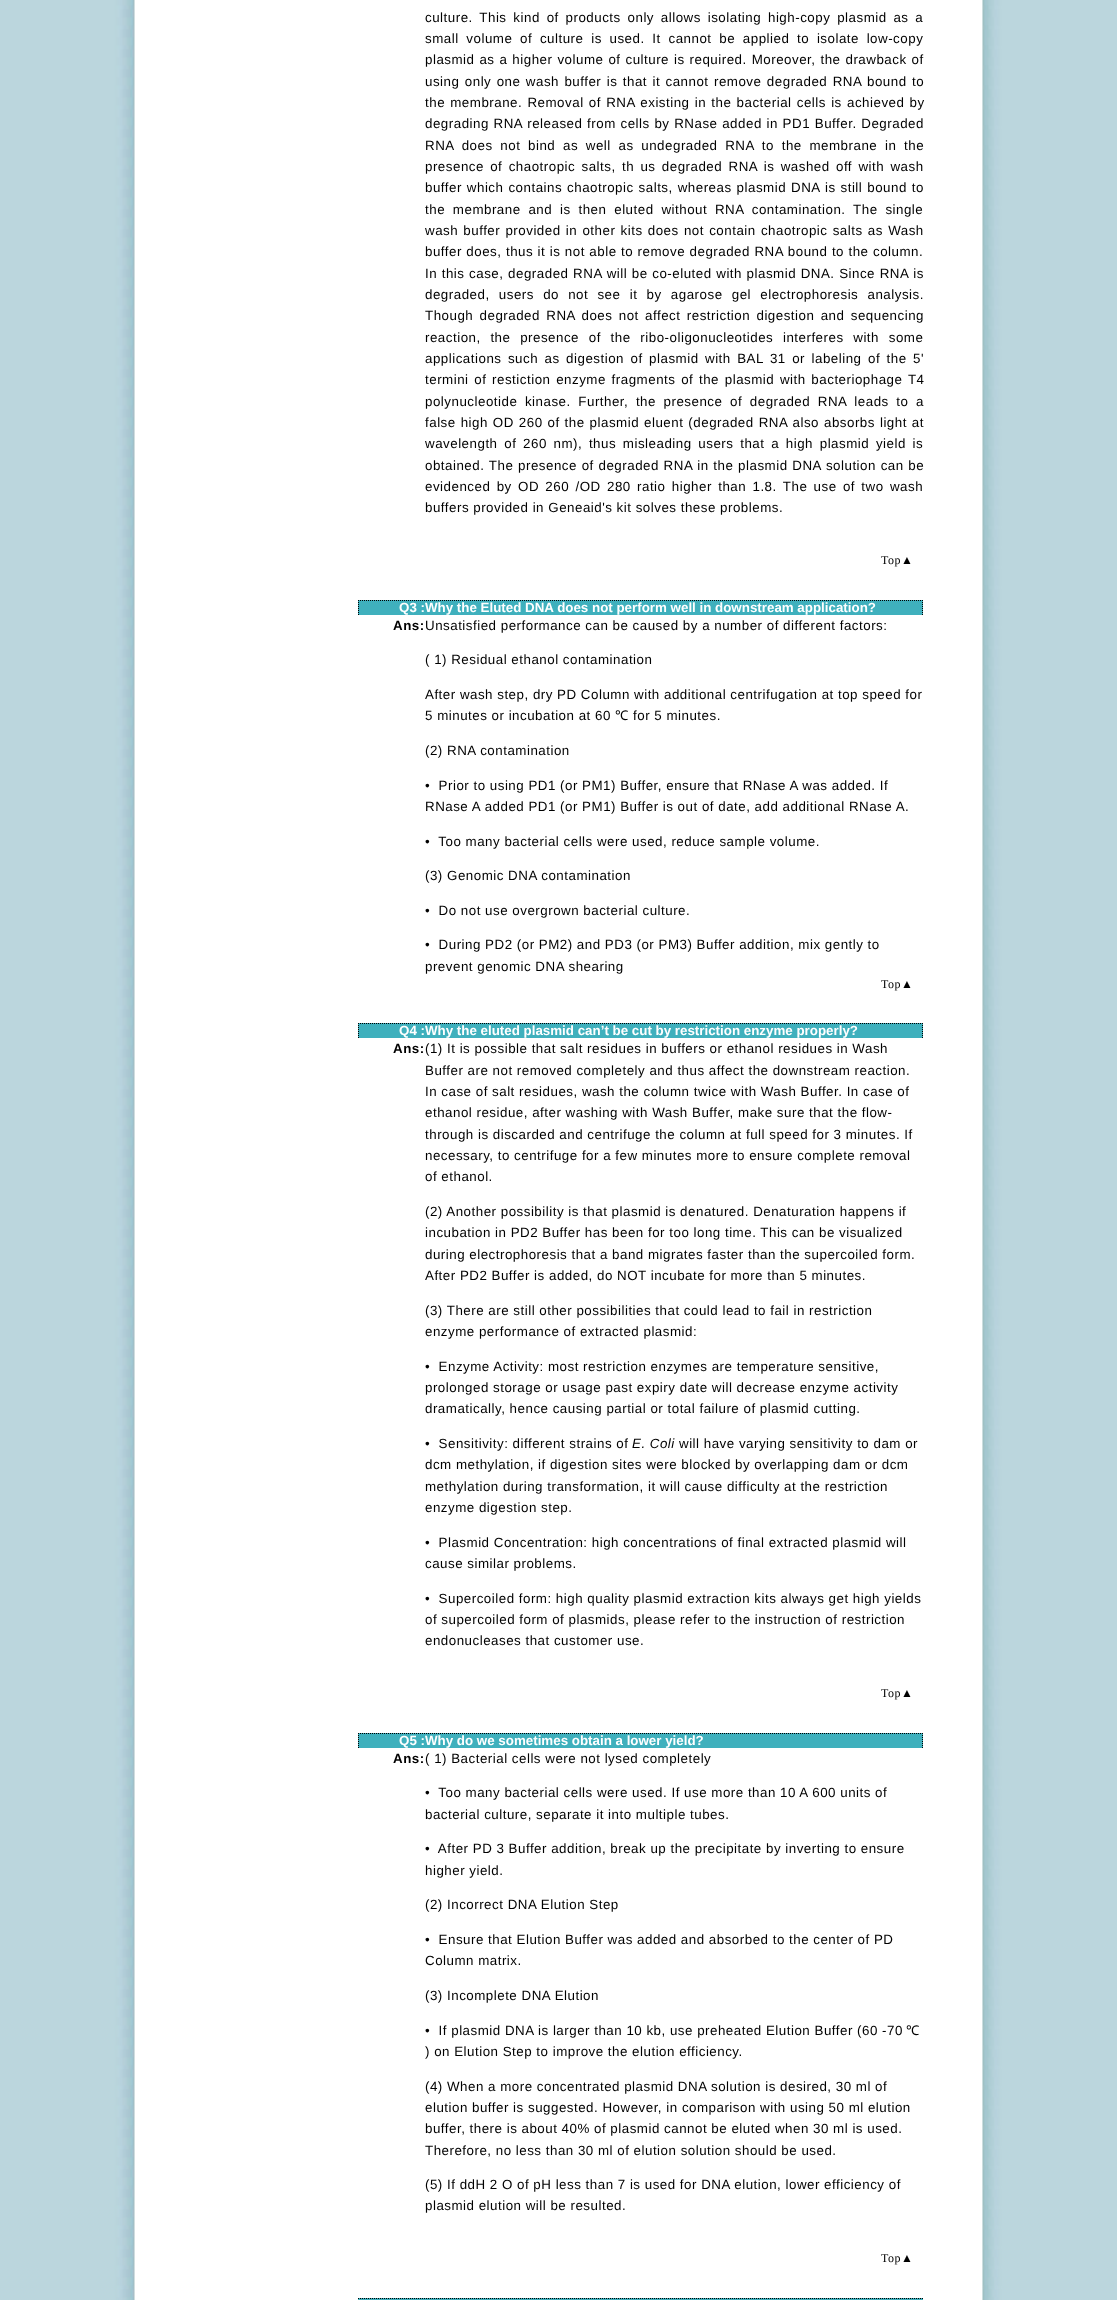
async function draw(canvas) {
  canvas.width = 1117;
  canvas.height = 2300;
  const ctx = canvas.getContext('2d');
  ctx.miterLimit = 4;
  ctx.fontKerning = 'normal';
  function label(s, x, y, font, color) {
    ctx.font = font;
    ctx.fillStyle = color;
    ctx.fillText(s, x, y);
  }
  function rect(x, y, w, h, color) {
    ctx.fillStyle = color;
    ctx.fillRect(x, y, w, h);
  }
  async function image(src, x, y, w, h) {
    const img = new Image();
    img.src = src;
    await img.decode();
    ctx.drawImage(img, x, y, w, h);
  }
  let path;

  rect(0, 0, 1117, 2300, '#fff');
  await image('assets/img1.png', 0, 0, 1117, 2300);
  rect(135, 0, 847, 2300, '#fff');
  ctx.letterSpacing = '0.5px';
  ctx.wordSpacing = '2.6px';
  label('culture. This kind of products only allows isolating high-copy plasmid as a', 425, 22, '13.35px Liberation Sans', '#000');
  ctx.wordSpacing = '3.5px';
  label('small volume of culture is used. It cannot be applied to isolate low-copy', 425, 43, '13.35px Liberation Sans', '#000');
  ctx.wordSpacing = '0.75px';
  label('plasmid as a higher volume of culture is required. Moreover, the drawback of', 425, 64, '13.35px Liberation Sans', '#000');
  ctx.wordSpacing = '1.2px';
  label('using only one wash buffer is that it cannot remove degraded RNA bound to', 425, 86, '13.35px Liberation Sans', '#000');
  ctx.wordSpacing = '1px';
  label('the membrane. Removal of RNA existing in the bacterial cells is achieved by', 425, 107, '13.35px Liberation Sans', '#000');
  ctx.wordSpacing = '0.5px';
  label('degrading RNA released from cells by RNase added in PD1 Buffer. Degraded', 425, 128, '13.35px Liberation Sans', '#000');
  ctx.wordSpacing = '3.5px';
  label('RNA does not bind as well as undegraded RNA to the membrane in the', 425, 150, '13.35px Liberation Sans', '#000');
  ctx.wordSpacing = '2.1px';
  label('presence of chaotropic salts, th us degraded RNA is washed off with wash', 425, 171, '13.35px Liberation Sans', '#000');
  ctx.wordSpacing = '0.75px';
  label('buffer which contains chaotropic salts, whereas plasmid DNA is still bound to', 425, 192, '13.35px Liberation Sans', '#000');
  ctx.wordSpacing = '3.6px';
  label('the membrane and is then eluted without RNA contamination. The single', 425, 214, '13.35px Liberation Sans', '#000');
  ctx.wordSpacing = '1px';
  label('wash buffer provided in other kits does not contain chaotropic salts as Wash', 425, 235, '13.35px Liberation Sans', '#000');
  ctx.wordSpacing = '0.25px';
  label('buffer does, thus it is not able to remove degraded RNA bound to the column.', 425, 256, '13.35px Liberation Sans', '#000');
  ctx.wordSpacing = '0.4px';
  label('In this case, degraded RNA will be co-eluted with plasmid DNA. Since RNA is', 425, 278, '13.35px Liberation Sans', '#000');
  ctx.wordSpacing = '5px';
  label('degraded, users do not see it by agarose gel electrophoresis analysis.', 425, 299, '13.35px Liberation Sans', '#000');
  ctx.wordSpacing = '2.1px';
  label('Though degraded RNA does not affect restriction digestion and sequencing', 425, 320, '13.35px Liberation Sans', '#000');
  ctx.wordSpacing = '5.5px';
  label('reaction, the presence of the ribo-oligonucleotides interferes with some', 425, 342, '13.35px Liberation Sans', '#000');
  ctx.wordSpacing = '2.25px';
  label('applications such as digestion of plasmid with BAL 31 or labeling of the 5\'', 425, 363, '13.35px Liberation Sans', '#000');
  ctx.wordSpacing = '1.5px';
  label('termini of restiction enzyme fragments of the plasmid with bacteriophage T4', 425, 384, '13.35px Liberation Sans', '#000');
  ctx.wordSpacing = '3.4px';
  label('polynucleotide kinase. Further, the presence of degraded RNA leads to a', 425, 406, '13.35px Liberation Sans', '#000');
  ctx.wordSpacing = '0.75px';
  label('false high OD 260 of the plasmid eluent (degraded RNA also absorbs light at', 425, 427, '13.35px Liberation Sans', '#000');
  ctx.wordSpacing = '2.5px';
  label('wavelength of 260 nm), thus misleading users that a high plasmid yield is', 425, 448, '13.35px Liberation Sans', '#000');
  ctx.wordSpacing = '0.5px';
  label('obtained. The presence of degraded RNA in the plasmid DNA solution can be', 425, 470, '13.35px Liberation Sans', '#000');
  ctx.wordSpacing = '2.1px';
  label('evidenced by OD 260 /OD 280 ratio higher than 1.8. The use of two wash', 425, 491, '13.35px Liberation Sans', '#000');
  ctx.wordSpacing = '0px';
  label('buffers provided in Geneaid\'s kit solves these problems.', 425, 512, '13.35px Liberation Sans', '#000');
  label('Top▲', 881, 564, '12px Liberation Serif', '#000');
  rect(358, 600, 565, 15, '#3fb0bd');
  path = new Path2D('M358 600.5H923');
  ctx.strokeStyle = '#000';
  ctx.setLineDash([1, 1]);
  ctx.stroke(path);
  path = new Path2D('M922.5 600V615');
  ctx.stroke(path);
  path = new Path2D('M358.5 600V615');
  ctx.stroke(path);
  ctx.letterSpacing = '0px';
  label('Q3 :Why the Eluted DNA does not perform well in downstream application?', 399, 612, 'bold 13.35px Liberation Sans', '#fff');
  ctx.letterSpacing = '0.5px';
  label('Ans:', 393, 630, 'bold 13.35px Liberation Sans', '#000');
  label('Unsatisfied performance can be caused by a number of different factors:', 425, 630, '13.35px Liberation Sans', '#000');
  label('( 1) Residual ethanol contamination', 425, 664, '13.35px Liberation Sans', '#000');
  label('After wash step, dry PD Column with additional centrifugation at top speed for', 425, 699, '13.35px Liberation Sans', '#000');
  label('5 minutes or incubation at 60', 425, 720, '13.35px Liberation Sans', '#000');
  label('℃', 615, 720, '13.35px Noto Sans', '#000');
  label('for 5 minutes.', 633, 720, '13.35px Liberation Sans', '#000');
  label('(2) RNA contamination', 425, 755, '13.35px Liberation Sans', '#000');
  label('•  Prior to using PD1 (or PM1) Buffer, ensure that RNase A was added. If', 425, 790, '13.35px Liberation Sans', '#000');
  label('RNase A added PD1 (or PM1) Buffer is out of date, add additional RNase A.', 425, 811, '13.35px Liberation Sans', '#000');
  label('•  Too many bacterial cells were used, reduce sample volume.', 425, 846, '13.35px Liberation Sans', '#000');
  label('(3) Genomic DNA contamination', 425, 880, '13.35px Liberation Sans', '#000');
  label('•  Do not use overgrown bacterial culture.', 425, 915, '13.35px Liberation Sans', '#000');
  label('•  During PD2 (or PM2) and PD3 (or PM3) Buffer addition, mix gently to', 425, 949, '13.35px Liberation Sans', '#000');
  label('prevent genomic DNA shearing', 425, 971, '13.35px Liberation Sans', '#000');
  label('Top▲', 881, 988, '12px Liberation Serif', '#000');
  rect(358, 1023, 565, 15, '#3fb0bd');
  path = new Path2D('M358 1023.5H923');
  ctx.stroke(path);
  path = new Path2D('M922.5 1023V1038');
  ctx.stroke(path);
  path = new Path2D('M358.5 1023V1038');
  ctx.stroke(path);
  ctx.letterSpacing = '0px';
  label('Q4 :Why the eluted plasmid can’t be cut by restriction enzyme properly?', 399, 1035, 'bold 13.35px Liberation Sans', '#fff');
  ctx.letterSpacing = '0.5px';
  label('Ans:', 393, 1053, 'bold 13.35px Liberation Sans', '#000');
  label('(1) It is possible that salt residues in buffers or ethanol residues in Wash', 425, 1053, '13.35px Liberation Sans', '#000');
  label('Buffer are not removed completely and thus affect the downstream reaction.', 425, 1075, '13.35px Liberation Sans', '#000');
  label('In case of salt residues, wash the column twice with Wash Buffer. In case of', 425, 1096, '13.35px Liberation Sans', '#000');
  label('ethanol residue, after washing with Wash Buffer, make sure that the flow-', 425, 1117, '13.35px Liberation Sans', '#000');
  label('through is discarded and centrifuge the column at full speed for 3 minutes. If', 425, 1139, '13.35px Liberation Sans', '#000');
  label('necessary, to centrifuge for a few minutes more to ensure complete removal', 425, 1160, '13.35px Liberation Sans', '#000');
  label('of ethanol.', 425, 1181, '13.35px Liberation Sans', '#000');
  label('(2) Another possibility is that plasmid is denatured. Denaturation happens if', 425, 1216, '13.35px Liberation Sans', '#000');
  label('incubation in PD2 Buffer has been for too long time. This can be visualized', 425, 1237, '13.35px Liberation Sans', '#000');
  label('during electrophoresis that a band migrates faster than the supercoiled form.', 425, 1259, '13.35px Liberation Sans', '#000');
  label('After PD2 Buffer is added, do NOT incubate for more than 5 minutes.', 425, 1280, '13.35px Liberation Sans', '#000');
  label('(3) There are still other possibilities that could lead to fail in restriction', 425, 1315, '13.35px Liberation Sans', '#000');
  label('enzyme performance of extracted plasmid:', 425, 1336, '13.35px Liberation Sans', '#000');
  label('•  Enzyme Activity: most restriction enzymes are temperature sensitive,', 425, 1371, '13.35px Liberation Sans', '#000');
  label('prolonged storage or usage past expiry date will decrease enzyme activity', 425, 1392, '13.35px Liberation Sans', '#000');
  label('dramatically, hence causing partial or total failure of plasmid cutting.', 425, 1413, '13.35px Liberation Sans', '#000');
  label('•  Sensitivity: different strains of', 425, 1448, '13.35px Liberation Sans', '#000');
  label('E. Coli', 632, 1448, 'italic 13.35px Liberation Sans', '#000');
  label('will have varying sensitivity to dam or', 679, 1448, '13.35px Liberation Sans', '#000');
  label('dcm methylation, if digestion sites were blocked by overlapping dam or dcm', 425, 1469, '13.35px Liberation Sans', '#000');
  label('methylation during transformation, it will cause difficulty at the restriction', 425, 1491, '13.35px Liberation Sans', '#000');
  label('enzyme digestion step.', 425, 1512, '13.35px Liberation Sans', '#000');
  label('•  Plasmid Concentration: high concentrations of final extracted plasmid will', 425, 1547, '13.35px Liberation Sans', '#000');
  label('cause similar problems.', 425, 1568, '13.35px Liberation Sans', '#000');
  label('•  Supercoiled form: high quality plasmid extraction kits always get high yields', 425, 1603, '13.35px Liberation Sans', '#000');
  label('of supercoiled form of plasmids, please refer to the instruction of restriction', 425, 1624, '13.35px Liberation Sans', '#000');
  label('endonucleases that customer use.', 425, 1645, '13.35px Liberation Sans', '#000');
  label('Top▲', 881, 1697, '12px Liberation Serif', '#000');
  rect(358, 1733, 565, 15, '#3fb0bd');
  path = new Path2D('M358 1733.5H923');
  ctx.stroke(path);
  path = new Path2D('M922.5 1733V1748');
  ctx.stroke(path);
  path = new Path2D('M358.5 1733V1748');
  ctx.stroke(path);
  ctx.letterSpacing = '0px';
  label('Q5 :Why do we sometimes obtain a lower yield?', 399, 1745, 'bold 13.35px Liberation Sans', '#fff');
  ctx.letterSpacing = '0.5px';
  label('Ans:', 393, 1763, 'bold 13.35px Liberation Sans', '#000');
  label('( 1) Bacterial cells were not lysed completely', 425, 1763, '13.35px Liberation Sans', '#000');
  label('•  Too many bacterial cells were used. If use more than 10 A 600 units of', 425, 1797, '13.35px Liberation Sans', '#000');
  label('bacterial culture, separate it into multiple tubes.', 425, 1819, '13.35px Liberation Sans', '#000');
  label('•  After PD 3 Buffer addition, break up the precipitate by inverting to ensure', 425, 1853, '13.35px Liberation Sans', '#000');
  label('higher yield.', 425, 1875, '13.35px Liberation Sans', '#000');
  label('(2) Incorrect DNA Elution Step', 425, 1909, '13.35px Liberation Sans', '#000');
  label('•  Ensure that Elution Buffer was added and absorbed to the center of PD', 425, 1944, '13.35px Liberation Sans', '#000');
  label('Column matrix.', 425, 1965, '13.35px Liberation Sans', '#000');
  label('(3) Incomplete DNA Elution', 425, 2000, '13.35px Liberation Sans', '#000');
  label('•  If plasmid DNA is larger than 10 kb, use preheated Elution Buffer (60 -70', 425, 2035, '13.35px Liberation Sans', '#000');
  label('℃', 906, 2035, '13.35px Noto Sans', '#000');
  label(') on Elution Step to improve the elution efficiency.', 425, 2056, '13.35px Liberation Sans', '#000');
  label('(4) When a more concentrated plasmid DNA solution is desired, 30 ml of', 425, 2091, '13.35px Liberation Sans', '#000');
  label('elution buffer is suggested. However, in comparison with using 50 ml elution', 425, 2112, '13.35px Liberation Sans', '#000');
  label('buffer, there is about 40% of plasmid cannot be eluted when 30 ml is used.', 425, 2133, '13.35px Liberation Sans', '#000');
  label('Therefore, no less than 30 ml of elution solution should be used.', 425, 2155, '13.35px Liberation Sans', '#000');
  label('(5) If ddH 2 O of pH less than 7 is used for DNA elution, lower efficiency of', 425, 2189, '13.35px Liberation Sans', '#000');
  label('plasmid elution will be resulted.', 425, 2210, '13.35px Liberation Sans', '#000');
  label('Top▲', 881, 2262, '12px Liberation Serif', '#000');
  rect(358, 2298, 565, 2, '#3fb0bd');
  path = new Path2D('M358 2298.5H923');
  ctx.stroke(path);
}

draw(document.querySelector('canvas'));
